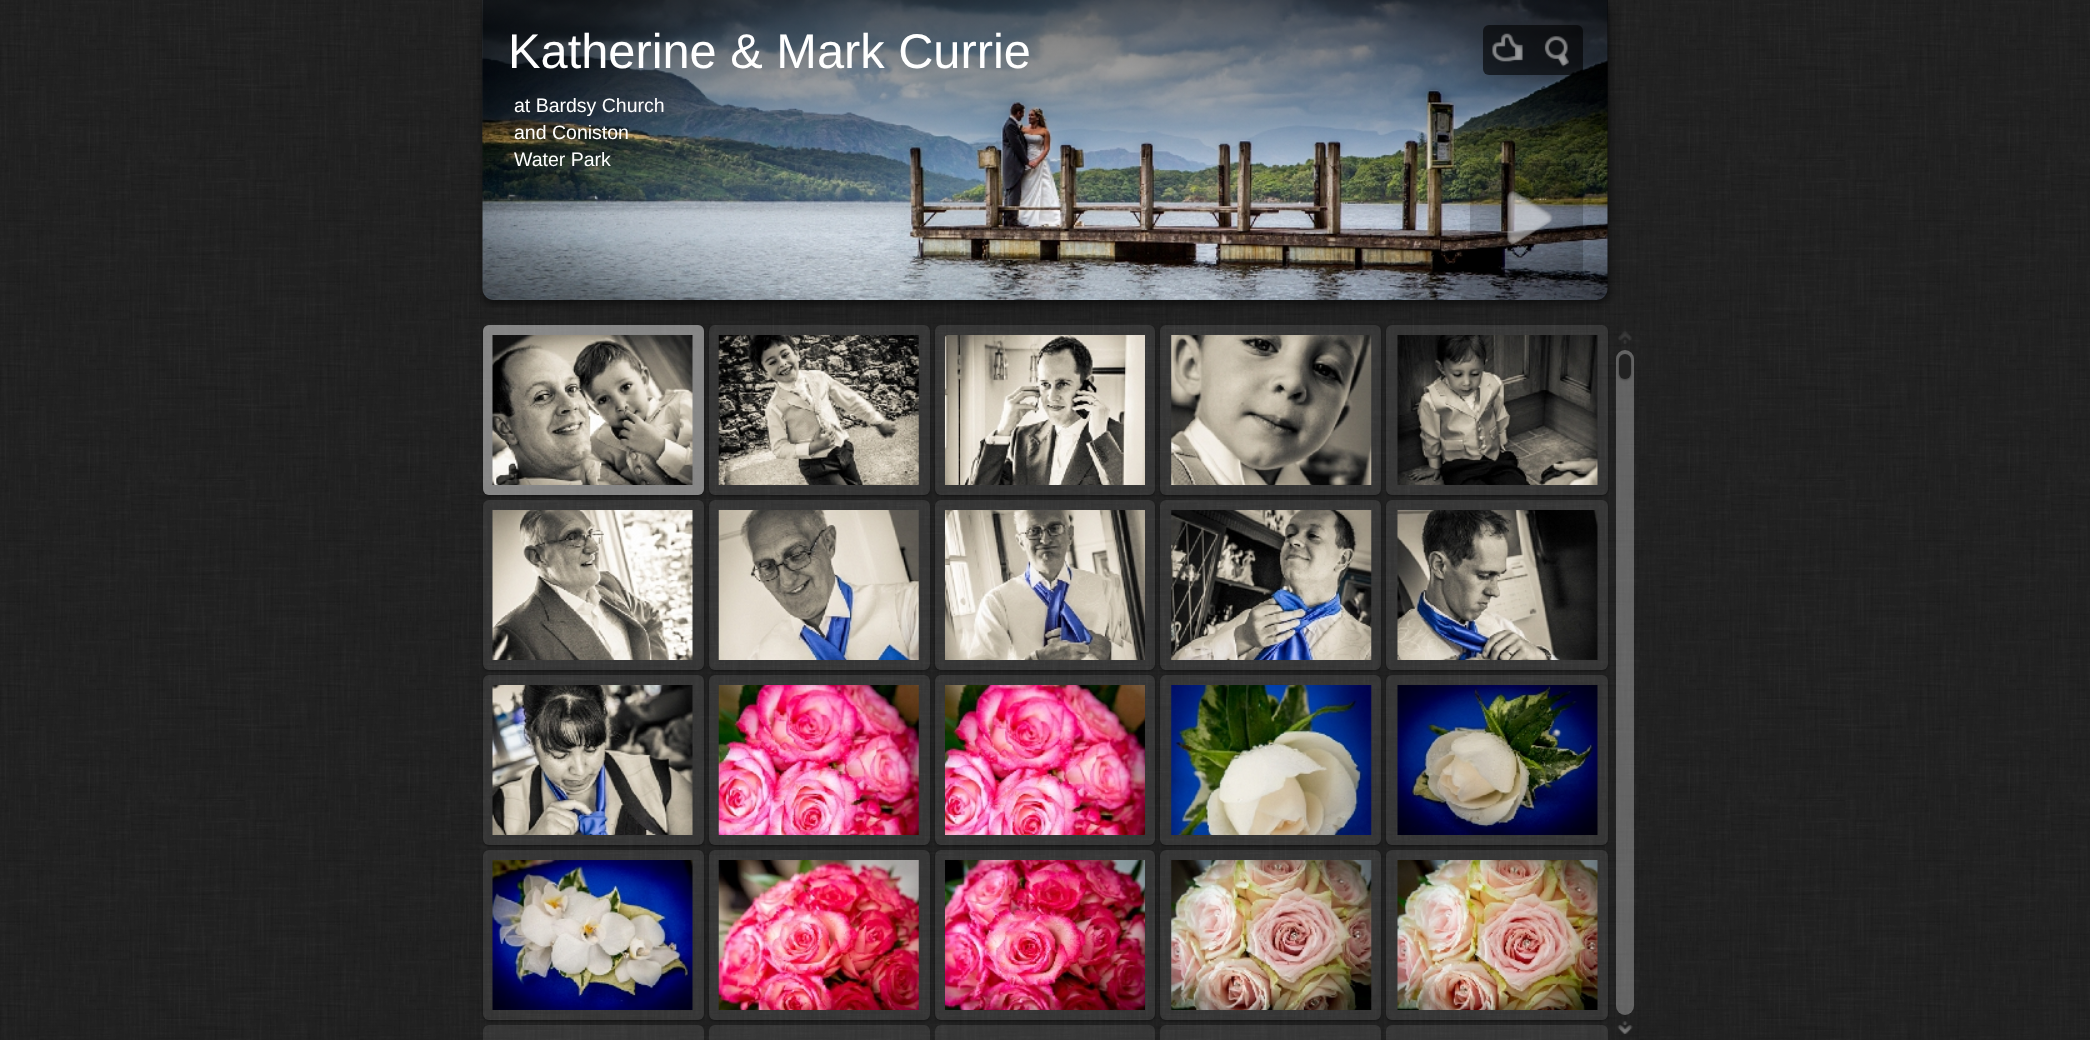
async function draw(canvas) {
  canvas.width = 2090;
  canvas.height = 1040;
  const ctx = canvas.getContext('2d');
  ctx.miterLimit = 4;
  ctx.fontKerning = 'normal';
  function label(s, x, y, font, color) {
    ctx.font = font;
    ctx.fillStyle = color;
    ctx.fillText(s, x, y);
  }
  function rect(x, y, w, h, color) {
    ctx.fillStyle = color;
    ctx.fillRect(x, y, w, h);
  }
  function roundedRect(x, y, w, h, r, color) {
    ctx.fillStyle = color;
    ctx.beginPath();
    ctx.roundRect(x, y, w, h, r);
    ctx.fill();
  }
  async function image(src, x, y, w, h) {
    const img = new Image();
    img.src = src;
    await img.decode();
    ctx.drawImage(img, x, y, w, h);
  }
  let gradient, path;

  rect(0, 0, 2090, 1040, '#222');
  await image('assets/img1.png', 0, 0, 2090, 1040);
  ctx.fillStyle = '#00000099';
  ctx.filter = 'blur(5px)';
  ctx.beginPath();
  ctx.roundRect(484, 4, 1125, 300, 11);
  ctx.fill();
  ctx.filter = 'none';
  ctx.fillStyle = '#00000033';
  ctx.beginPath();
  ctx.roundRect(483, 0, 1125, 300, [0, 0, 11, 11]);
  ctx.fill();
  await image('assets/img2.png', 482, 0, 1126, 300);
  gradient = ctx.createLinearGradient(1045, 0, 1045, 189);
  gradient.addColorStop(0, '#00000099');
  gradient.addColorStop(1, '#00000000');
  ctx.fillStyle = gradient;
  ctx.fillRect(483, 0, 1125, 182);
  label('Katherine & Mark Currie', 508, 68, '48.75px Liberation Sans', '#fff');
  label('at Bardsy Church', 514, 112, '19.5px Liberation Sans', '#fff');
  label('and Coniston', 514, 139, '19.5px Liberation Sans', '#fff');
  label('Water Park', 514, 166, '19.5px Liberation Sans', '#fff');
  ctx.fillStyle = '#00000099';
  ctx.beginPath();
  ctx.roundRect(1483, 25, 50, 50, [6, 0, 0, 6]);
  ctx.fill();
  await image('assets/img3.png', 1492, 33, 31, 29);
  ctx.beginPath();
  ctx.roundRect(1533, 25, 50, 50, [0, 6, 6, 0]);
  ctx.fill();
  await image('assets/img4.png', 1544, 36, 25, 31);
  roundedRect(1470, 163, 113, 112, 6, '#00000033');
  await image('assets/img5.png', 1507, 191, 46, 53);
  ctx.save();
  path = new Path2D('M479 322H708V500H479ZM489 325H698C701.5 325 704 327.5 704 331V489C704 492.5 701.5 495 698 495H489C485.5 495 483 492.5 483 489V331C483 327.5 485.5 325 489 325Z');
  ctx.clip(path, 'evenodd');
  ctx.fillStyle = '#00000066';
  ctx.filter = 'blur(1px)';
  ctx.beginPath();
  ctx.roundRect(483, 326, 221, 170, 6);
  ctx.fill();
  ctx.filter = 'none';
  ctx.restore();
  roundedRect(483, 325, 221, 170, 6, '#ffffff1a');
  roundedRect(483, 325, 221, 170, 6, '#ffffff66');
  await image('assets/img6.png', 492, 335, 201, 150);
  ctx.save();
  path = new Path2D('M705 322H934V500H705ZM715 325H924C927.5 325 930 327.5 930 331V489C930 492.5 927.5 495 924 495H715C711.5 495 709 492.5 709 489V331C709 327.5 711.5 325 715 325Z');
  ctx.clip(path, 'evenodd');
  ctx.fillStyle = '#00000066';
  ctx.filter = 'blur(1px)';
  ctx.beginPath();
  ctx.roundRect(709, 326, 221, 170, 6);
  ctx.fill();
  ctx.filter = 'none';
  ctx.restore();
  roundedRect(709, 325, 221, 170, 6, '#ffffff1a');
  await image('assets/img7.png', 718, 335, 201, 150);
  ctx.save();
  path = new Path2D('M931 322H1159V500H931ZM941 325H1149C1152.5 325 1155 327.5 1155 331V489C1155 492.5 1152.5 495 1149 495H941C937.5 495 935 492.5 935 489V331C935 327.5 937.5 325 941 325Z');
  ctx.clip(path, 'evenodd');
  ctx.fillStyle = '#00000066';
  ctx.filter = 'blur(1px)';
  ctx.beginPath();
  ctx.roundRect(935, 326, 220, 170, 6);
  ctx.fill();
  ctx.filter = 'none';
  ctx.restore();
  roundedRect(935, 325, 220, 170, 6, '#ffffff1a');
  await image('assets/img8.png', 945, 335, 200, 150);
  ctx.save();
  path = new Path2D('M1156 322H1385V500H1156ZM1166 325H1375C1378.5 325 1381 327.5 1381 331V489C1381 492.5 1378.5 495 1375 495H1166C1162.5 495 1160 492.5 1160 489V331C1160 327.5 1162.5 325 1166 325Z');
  ctx.clip(path, 'evenodd');
  ctx.fillStyle = '#00000066';
  ctx.filter = 'blur(1px)';
  ctx.beginPath();
  ctx.roundRect(1160, 326, 221, 170, 6);
  ctx.fill();
  ctx.filter = 'none';
  ctx.restore();
  roundedRect(1160, 325, 221, 170, 6, '#ffffff1a');
  await image('assets/img9.png', 1171, 335, 201, 150);
  ctx.save();
  path = new Path2D('M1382 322H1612V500H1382ZM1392 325H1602C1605.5 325 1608 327.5 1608 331V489C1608 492.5 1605.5 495 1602 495H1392C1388.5 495 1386 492.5 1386 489V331C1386 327.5 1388.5 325 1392 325Z');
  ctx.clip(path, 'evenodd');
  ctx.fillStyle = '#00000066';
  ctx.filter = 'blur(1px)';
  ctx.beginPath();
  ctx.roundRect(1386, 326, 222, 170, 6);
  ctx.fill();
  ctx.filter = 'none';
  ctx.restore();
  roundedRect(1386, 325, 222, 170, 6, '#ffffff1a');
  await image('assets/img10.png', 1397, 335, 201, 150);
  ctx.save();
  path = new Path2D('M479 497H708V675H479ZM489 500H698C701.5 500 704 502.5 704 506V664C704 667.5 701.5 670 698 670H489C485.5 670 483 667.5 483 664V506C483 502.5 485.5 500 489 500Z');
  ctx.clip(path, 'evenodd');
  ctx.fillStyle = '#00000066';
  ctx.filter = 'blur(1px)';
  ctx.beginPath();
  ctx.roundRect(483, 501, 221, 170, 6);
  ctx.fill();
  ctx.filter = 'none';
  ctx.restore();
  roundedRect(483, 500, 221, 170, 6, '#ffffff1a');
  await image('assets/img11.png', 492, 510, 201, 150);
  ctx.save();
  path = new Path2D('M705 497H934V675H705ZM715 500H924C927.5 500 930 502.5 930 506V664C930 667.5 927.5 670 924 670H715C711.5 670 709 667.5 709 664V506C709 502.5 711.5 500 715 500Z');
  ctx.clip(path, 'evenodd');
  ctx.fillStyle = '#00000066';
  ctx.filter = 'blur(1px)';
  ctx.beginPath();
  ctx.roundRect(709, 501, 221, 170, 6);
  ctx.fill();
  ctx.filter = 'none';
  ctx.restore();
  roundedRect(709, 500, 221, 170, 6, '#ffffff1a');
  await image('assets/img12.png', 718, 510, 201, 150);
  ctx.save();
  path = new Path2D('M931 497H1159V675H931ZM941 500H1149C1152.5 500 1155 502.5 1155 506V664C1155 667.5 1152.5 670 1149 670H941C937.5 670 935 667.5 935 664V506C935 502.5 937.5 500 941 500Z');
  ctx.clip(path, 'evenodd');
  ctx.fillStyle = '#00000066';
  ctx.filter = 'blur(1px)';
  ctx.beginPath();
  ctx.roundRect(935, 501, 220, 170, 6);
  ctx.fill();
  ctx.filter = 'none';
  ctx.restore();
  roundedRect(935, 500, 220, 170, 6, '#ffffff1a');
  await image('assets/img13.png', 945, 510, 200, 150);
  ctx.save();
  path = new Path2D('M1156 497H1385V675H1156ZM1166 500H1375C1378.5 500 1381 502.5 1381 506V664C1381 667.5 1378.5 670 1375 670H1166C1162.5 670 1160 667.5 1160 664V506C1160 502.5 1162.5 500 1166 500Z');
  ctx.clip(path, 'evenodd');
  ctx.fillStyle = '#00000066';
  ctx.filter = 'blur(1px)';
  ctx.beginPath();
  ctx.roundRect(1160, 501, 221, 170, 6);
  ctx.fill();
  ctx.filter = 'none';
  ctx.restore();
  roundedRect(1160, 500, 221, 170, 6, '#ffffff1a');
  await image('assets/img14.png', 1171, 510, 201, 150);
  ctx.save();
  path = new Path2D('M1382 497H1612V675H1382ZM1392 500H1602C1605.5 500 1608 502.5 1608 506V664C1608 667.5 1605.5 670 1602 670H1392C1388.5 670 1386 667.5 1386 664V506C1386 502.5 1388.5 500 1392 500Z');
  ctx.clip(path, 'evenodd');
  ctx.fillStyle = '#00000066';
  ctx.filter = 'blur(1px)';
  ctx.beginPath();
  ctx.roundRect(1386, 501, 222, 170, 6);
  ctx.fill();
  ctx.filter = 'none';
  ctx.restore();
  roundedRect(1386, 500, 222, 170, 6, '#ffffff1a');
  await image('assets/img15.png', 1397, 510, 201, 150);
  ctx.save();
  path = new Path2D('M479 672H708V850H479ZM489 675H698C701.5 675 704 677.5 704 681V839C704 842.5 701.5 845 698 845H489C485.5 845 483 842.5 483 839V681C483 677.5 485.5 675 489 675Z');
  ctx.clip(path, 'evenodd');
  ctx.fillStyle = '#00000066';
  ctx.filter = 'blur(1px)';
  ctx.beginPath();
  ctx.roundRect(483, 676, 221, 170, 6);
  ctx.fill();
  ctx.filter = 'none';
  ctx.restore();
  roundedRect(483, 675, 221, 170, 6, '#ffffff1a');
  await image('assets/img16.png', 492, 685, 201, 150);
  ctx.save();
  path = new Path2D('M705 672H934V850H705ZM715 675H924C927.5 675 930 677.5 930 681V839C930 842.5 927.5 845 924 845H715C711.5 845 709 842.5 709 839V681C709 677.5 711.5 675 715 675Z');
  ctx.clip(path, 'evenodd');
  ctx.fillStyle = '#00000066';
  ctx.filter = 'blur(1px)';
  ctx.beginPath();
  ctx.roundRect(709, 676, 221, 170, 6);
  ctx.fill();
  ctx.filter = 'none';
  ctx.restore();
  roundedRect(709, 675, 221, 170, 6, '#ffffff1a');
  await image('assets/img17.png', 718, 685, 201, 150);
  ctx.save();
  path = new Path2D('M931 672H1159V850H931ZM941 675H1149C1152.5 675 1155 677.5 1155 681V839C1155 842.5 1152.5 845 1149 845H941C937.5 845 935 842.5 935 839V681C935 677.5 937.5 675 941 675Z');
  ctx.clip(path, 'evenodd');
  ctx.fillStyle = '#00000066';
  ctx.filter = 'blur(1px)';
  ctx.beginPath();
  ctx.roundRect(935, 676, 220, 170, 6);
  ctx.fill();
  ctx.filter = 'none';
  ctx.restore();
  roundedRect(935, 675, 220, 170, 6, '#ffffff1a');
  await image('assets/img18.png', 945, 685, 200, 150);
  ctx.save();
  path = new Path2D('M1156 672H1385V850H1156ZM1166 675H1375C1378.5 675 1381 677.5 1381 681V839C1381 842.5 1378.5 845 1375 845H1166C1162.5 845 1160 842.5 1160 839V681C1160 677.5 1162.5 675 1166 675Z');
  ctx.clip(path, 'evenodd');
  ctx.fillStyle = '#00000066';
  ctx.filter = 'blur(1px)';
  ctx.beginPath();
  ctx.roundRect(1160, 676, 221, 170, 6);
  ctx.fill();
  ctx.filter = 'none';
  ctx.restore();
  roundedRect(1160, 675, 221, 170, 6, '#ffffff1a');
  await image('assets/img19.png', 1171, 685, 201, 150);
  ctx.save();
  path = new Path2D('M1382 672H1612V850H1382ZM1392 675H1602C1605.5 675 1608 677.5 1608 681V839C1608 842.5 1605.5 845 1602 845H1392C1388.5 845 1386 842.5 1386 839V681C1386 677.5 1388.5 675 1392 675Z');
  ctx.clip(path, 'evenodd');
  ctx.fillStyle = '#00000066';
  ctx.filter = 'blur(1px)';
  ctx.beginPath();
  ctx.roundRect(1386, 676, 222, 170, 6);
  ctx.fill();
  ctx.filter = 'none';
  ctx.restore();
  roundedRect(1386, 675, 222, 170, 6, '#ffffff1a');
  await image('assets/img20.png', 1397, 685, 201, 150);
  ctx.save();
  path = new Path2D('M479 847H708V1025H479ZM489 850H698C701.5 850 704 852.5 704 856V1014C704 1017.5 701.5 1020 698 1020H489C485.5 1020 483 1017.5 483 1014V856C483 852.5 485.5 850 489 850Z');
  ctx.clip(path, 'evenodd');
  ctx.fillStyle = '#00000066';
  ctx.filter = 'blur(1px)';
  ctx.beginPath();
  ctx.roundRect(483, 851, 221, 170, 6);
  ctx.fill();
  ctx.filter = 'none';
  ctx.restore();
  roundedRect(483, 850, 221, 170, 6, '#ffffff1a');
  await image('assets/img21.png', 492, 860, 201, 150);
  ctx.save();
  path = new Path2D('M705 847H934V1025H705ZM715 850H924C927.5 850 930 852.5 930 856V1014C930 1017.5 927.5 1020 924 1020H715C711.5 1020 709 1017.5 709 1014V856C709 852.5 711.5 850 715 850Z');
  ctx.clip(path, 'evenodd');
  ctx.fillStyle = '#00000066';
  ctx.filter = 'blur(1px)';
  ctx.beginPath();
  ctx.roundRect(709, 851, 221, 170, 6);
  ctx.fill();
  ctx.filter = 'none';
  ctx.restore();
  roundedRect(709, 850, 221, 170, 6, '#ffffff1a');
  await image('assets/img22.png', 718, 860, 201, 150);
  ctx.save();
  path = new Path2D('M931 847H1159V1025H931ZM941 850H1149C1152.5 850 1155 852.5 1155 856V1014C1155 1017.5 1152.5 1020 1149 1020H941C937.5 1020 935 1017.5 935 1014V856C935 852.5 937.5 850 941 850Z');
  ctx.clip(path, 'evenodd');
  ctx.fillStyle = '#00000066';
  ctx.filter = 'blur(1px)';
  ctx.beginPath();
  ctx.roundRect(935, 851, 220, 170, 6);
  ctx.fill();
  ctx.filter = 'none';
  ctx.restore();
  roundedRect(935, 850, 220, 170, 6, '#ffffff1a');
  await image('assets/img23.png', 945, 860, 200, 150);
  ctx.save();
  path = new Path2D('M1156 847H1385V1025H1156ZM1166 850H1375C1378.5 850 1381 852.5 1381 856V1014C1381 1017.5 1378.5 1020 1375 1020H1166C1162.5 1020 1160 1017.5 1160 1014V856C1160 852.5 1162.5 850 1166 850Z');
  ctx.clip(path, 'evenodd');
  ctx.fillStyle = '#00000066';
  ctx.filter = 'blur(1px)';
  ctx.beginPath();
  ctx.roundRect(1160, 851, 221, 170, 6);
  ctx.fill();
  ctx.filter = 'none';
  ctx.restore();
  roundedRect(1160, 850, 221, 170, 6, '#ffffff1a');
  await image('assets/img24.png', 1171, 860, 201, 150);
  ctx.save();
  path = new Path2D('M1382 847H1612V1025H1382ZM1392 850H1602C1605.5 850 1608 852.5 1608 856V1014C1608 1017.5 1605.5 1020 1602 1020H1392C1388.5 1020 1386 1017.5 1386 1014V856C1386 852.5 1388.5 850 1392 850Z');
  ctx.clip(path, 'evenodd');
  ctx.fillStyle = '#00000066';
  ctx.filter = 'blur(1px)';
  ctx.beginPath();
  ctx.roundRect(1386, 851, 222, 170, 6);
  ctx.fill();
  ctx.filter = 'none';
  ctx.restore();
  roundedRect(1386, 850, 222, 170, 6, '#ffffff1a');
  await image('assets/img25.png', 1397, 860, 201, 150);
  ctx.beginPath();
  ctx.roundRect(483, 1025, 221, 15, [6, 6, 0, 0]);
  ctx.fill();
  ctx.beginPath();
  ctx.roundRect(709, 1025, 221, 15, [6, 6, 0, 0]);
  ctx.fill();
  ctx.beginPath();
  ctx.roundRect(935, 1025, 220, 15, [6, 6, 0, 0]);
  ctx.fill();
  ctx.beginPath();
  ctx.roundRect(1160, 1025, 221, 15, [6, 6, 0, 0]);
  ctx.fill();
  ctx.beginPath();
  ctx.roundRect(1386, 1025, 222, 15, [6, 6, 0, 0]);
  ctx.fill();
  await image('assets/img26.png', 1618, 331, 14, 13);
  roundedRect(1616, 350, 18, 665, 9, '#ffffff4d');
  ctx.fillStyle = '#00000066';
  ctx.filter = 'blur(1px)';
  ctx.beginPath();
  ctx.roundRect(1619, 355, 12, 25, 6);
  ctx.fill();
  ctx.filter = 'none';
  roundedRect(1619, 354, 12, 25, 6, '#222');
  await image('assets/img27.png', 1617, 1021, 16, 13);
}

draw(document.querySelector('canvas'));
